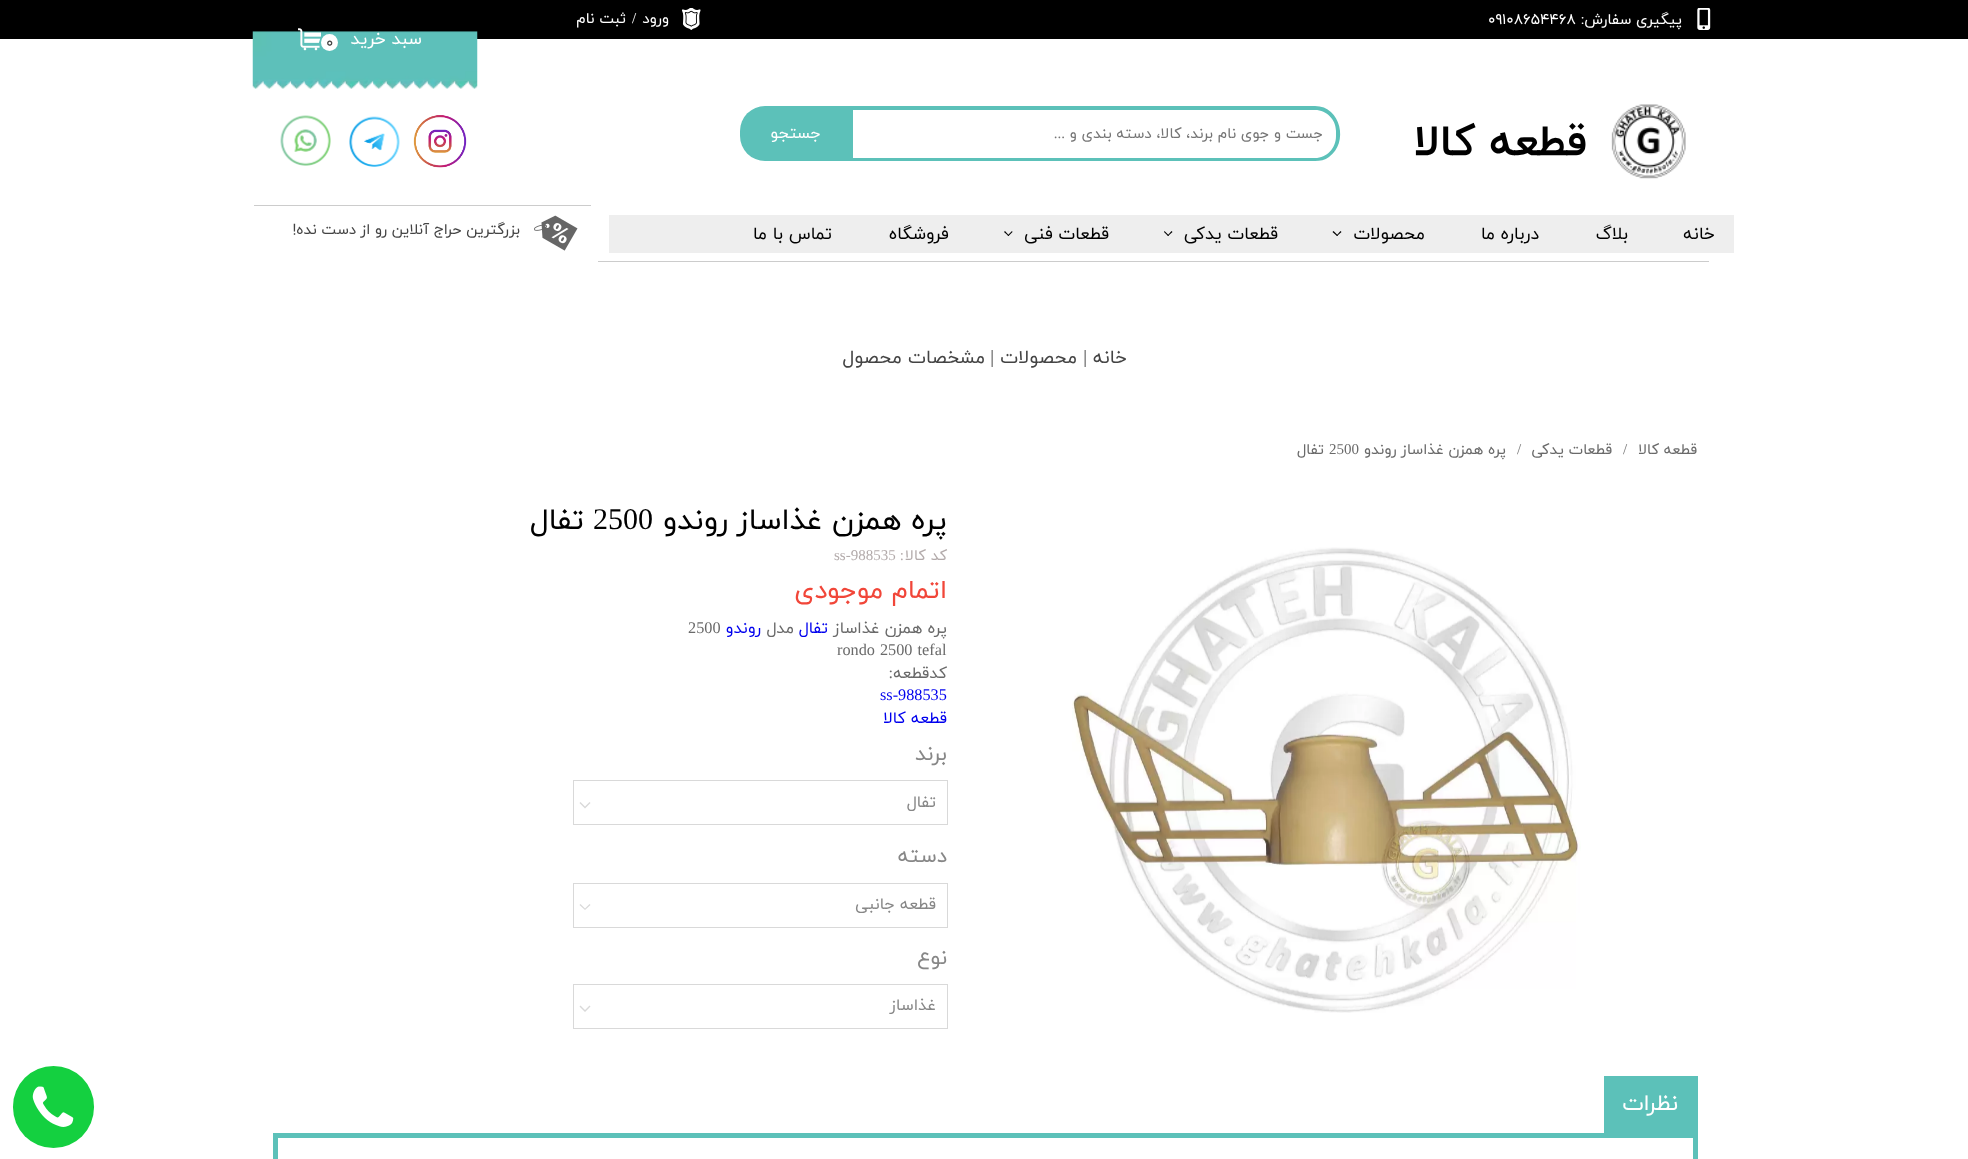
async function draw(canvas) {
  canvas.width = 1968;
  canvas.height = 1159;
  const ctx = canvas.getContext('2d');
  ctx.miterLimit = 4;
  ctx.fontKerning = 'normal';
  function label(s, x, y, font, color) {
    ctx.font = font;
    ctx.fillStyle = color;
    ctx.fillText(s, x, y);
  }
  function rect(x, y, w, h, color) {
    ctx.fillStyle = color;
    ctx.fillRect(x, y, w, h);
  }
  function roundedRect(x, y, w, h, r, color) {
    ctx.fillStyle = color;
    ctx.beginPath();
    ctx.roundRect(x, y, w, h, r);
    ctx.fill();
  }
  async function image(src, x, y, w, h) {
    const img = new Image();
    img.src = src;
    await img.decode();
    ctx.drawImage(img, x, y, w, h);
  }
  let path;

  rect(0, 0, 1968, 1159, '#fff');
  rect(0, 0, 1968, 39, '#000');
  await image('assets/img1.png', 1697, 8, 14, 22);
  ctx.direction = 'rtl';
  label('پیگیری سفارش:', 1682, 24, '15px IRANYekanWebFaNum', '#fff');
  ctx.direction = 'ltr';
  label('09108654468', 1488, 24, '15px IRANYekanWebFaNum', '#fff');
  await image('assets/img2.png', 682, 8, 19, 22);
  ctx.direction = 'rtl';
  label('ورود', 669, 23, '15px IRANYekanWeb', '#fff');
  ctx.direction = 'ltr';
  label('/', 632, 23, '15px Liberation Serif', '#fff');
  ctx.direction = 'rtl';
  label('ثبت نام', 626, 23, '15px IRANYekanWeb', '#fff');
  await image('assets/img3.png', 252, 31, 226, 58);
  label('سبد خرید', 422, 44, '17.5px IRANYekanWeb', '#fff');
  ctx.beginPath();
  ctx.arc(329.5, 42.5, 8.5, 0, 2 * Math.PI);
  ctx.fill();
  await image('assets/img4.png', 298, 28, 23, 23);
  ctx.direction = 'ltr';
  label('۰', 326, 47, '15px IRANYekanWebFaNum', '#444');
  await image('assets/img5.png', 1611, 104, 75, 75);
  ctx.direction = 'rtl';
  label('قطعه کالا', 1587, 155, 'bold 44px IRANYekanWeb', '#000');
  ctx.fillStyle = '#5cc1b9';
  path = new Path2D('M852 106H1315C1341 106 1349 143 1329 157C1325 160 1320 161 1315 161H852ZM852 110H1315C1327 110 1336 120 1336 131V136C1336 148 1327 158 1315 158H852Z');
  ctx.fill(path, 'evenodd');
  label('جست و جوی نام برند، کالا، دسته بندی و', 1323, 138, '15px IRANYekanWeb', '#757575');
  label('...', 1065, 138, '15px Liberation Serif', '#757575');
  ctx.fillStyle = '#5cc1b9';
  ctx.beginPath();
  ctx.roundRect(740, 106, 113, 55, [25, 0, 0, 25]);
  ctx.fill();
  label('جستجو', 821, 138, '16.25px IRANYekanWeb', '#fff');
  await image('assets/img6.png', 413, 115, 54, 53);
  await image('assets/img7.png', 349, 116, 51, 51);
  await image('assets/img8.png', 280, 115, 51, 51);
  rect(609, 215, 1125, 38, '#eee');
  label('خانه', 1715, 239, '17.5px IRANYekanWeb', '#000');
  label('بلاگ', 1628, 239, '17.5px IRANYekanWeb', '#000');
  label('درباره‌ ما', 1539, 239, '17.5px IRANYekanWeb', '#000');
  label('محصولات', 1425, 239, '17.5px IRANYekanWeb', '#000');
  path = new Path2D('M1340.5 231L1341.5 232L1337 236L1336.5 235.5Z');
  ctx.fill(path);
  path = new Path2D('M1333.5 231L1338 235.5L1337 236L1332.5 232Z');
  ctx.fill(path);
  label('قطعات یدکی', 1278, 239, '17.5px IRANYekanWeb', '#000');
  path = new Path2D('M1171.5 231L1172.5 232L1168 236L1167.5 235.5Z');
  ctx.fill(path);
  path = new Path2D('M1164.5 231L1169 235.5L1168 236L1164 232Z');
  ctx.fill(path);
  label('قطعات فنی', 1109, 239, '17.5px IRANYekanWeb', '#000');
  path = new Path2D('M1012 231L1012.5 232L1008.5 236L1007.5 235.5Z');
  ctx.fill(path);
  path = new Path2D('M1005 231L1009 235.5L1008.5 236L1004 232Z');
  ctx.fill(path);
  label('فروشگاه', 949, 239, '17.5px IRANYekanWeb', '#000');
  label('تماس با ما', 832, 239, '17.5px IRANYekanWeb', '#000');
  rect(598, 261, 1111, 1, '#ccc');
  rect(254, 205, 337, 1, '#ccc');
  await image('assets/img9.png', 534, 215, 44, 36);
  label('بزرگترین حراج آنلاین رو از دست نده!', 520, 234, '15px IRANYekanWebFaNum', '#444');
  label('خانه', 1127, 363, '18.75px IRANYekanWeb', '#444');
  label('|', 1087, 363, '18.75px Liberation Serif', '#444');
  label('محصولات', 1077, 363, '18.75px IRANYekanWeb', '#444');
  label('|', 994, 363, '18.75px Liberation Serif', '#444');
  label('مشخصات محصول', 985, 363, '18.75px IRANYekanWeb', '#444');
  label('قطعه کالا', 1697, 454, '15px IRANYekanWeb', '#6a6a6a');
  ctx.direction = 'ltr';
  label('/', 1623, 454, '15px Liberation Serif', '#757575');
  ctx.direction = 'rtl';
  label('قطعات یدکی', 1612, 454, '15px IRANYekanWeb', '#6a6a6a');
  ctx.direction = 'ltr';
  label('/', 1517, 454, '15px Liberation Serif', '#757575');
  ctx.direction = 'rtl';
  label('پره همزن غذاساز روندو', 1506, 454, '15px IRANYekanWeb', '#6a6a6a');
  ctx.direction = 'ltr';
  label('2500', 1329, 454, '15px Liberation Serif', '#6a6a6a');
  ctx.direction = 'rtl';
  label('تفال', 1324, 454, '15px IRANYekanWeb', '#6a6a6a');
  await image('assets/img10.png', 1072, 547, 509, 466);
  label('پره همزن غذاساز روندو', 947, 529, '30px IRANYekanWeb', '#000');
  ctx.direction = 'ltr';
  label('2500', 593, 529, '30px Liberation Serif', '#000');
  ctx.direction = 'rtl';
  label('تفال', 584, 529, '30px IRANYekanWeb', '#000');
  label('کد کالا', 947, 560, '15px IRANYekanWeb', '#b3abab');
  label(':', 904, 560, '15px Liberation Serif', '#b3abab');
  ctx.direction = 'ltr';
  label('ss-988535', 834, 560, '15px Liberation Serif', '#b3abab');
  ctx.direction = 'rtl';
  label('اتمام موجودی', 947, 598, '26.25px IRANYekanWeb', '#f14639');
  label('پره همزن غذاساز', 947, 633, '16.25px IRANYekanWeb', '#6a6a6a');
  label('تفال', 828, 633, '16.25px IRANYekanWeb', '#00e');
  label('مدل', 794, 633, '16.25px IRANYekanWeb', '#6a6a6a');
  label('روندو', 761, 633, '16.25px IRANYekanWeb', '#00e');
  ctx.direction = 'ltr';
  label('2500', 688, 633, '16.25px Liberation Serif', '#6a6a6a');
  ctx.wordSpacing = '1px';
  label('rondo 2500 tefal', 837, 655, '16.25px Liberation Serif', '#6a6a6a');
  ctx.wordSpacing = '0px';
  ctx.direction = 'rtl';
  label('کدقطعه', 947, 678, '16.25px IRANYekanWeb', '#6a6a6a');
  label(':', 893, 678, '16.25px Liberation Serif', '#6a6a6a');
  ctx.direction = 'ltr';
  label('ss-988535', 880, 700, '16.25px Liberation Serif', '#00e');
  ctx.direction = 'rtl';
  label('قطعه کالا', 947, 723, '16.25px IRANYekanWeb', '#00e');
  label('برند', 947, 760, '21px IRANYekanWeb', '#878787');
  ctx.strokeStyle = '#d9d9d9';
  ctx.strokeRect(573.5, 780.5, 374, 44);
  label('تفال', 936, 807, '16.25px IRANYekanWeb', '#878787');
  ctx.fillStyle = '#d9d9d9';
  path = new Path2D('M590.5 803L585 808.5V806.5L589.5 802ZM585 808.5L579.5 803L580.5 802L585 806.5Z');
  ctx.fill(path);
  label('دسته', 947, 862, '21px IRANYekanWeb', '#878787');
  ctx.strokeRect(573.5, 883.5, 374, 44);
  label('قطعه جانبی', 936, 909, '16.25px IRANYekanWeb', '#878787');
  ctx.fillStyle = '#d9d9d9';
  path = new Path2D('M590.5 905L585 910V908.5L589.5 904ZM585 910L579.5 905L580.5 904L585 908.5Z');
  ctx.fill(path);
  label('نوع', 947, 964, '21px IRANYekanWeb', '#878787');
  ctx.strokeRect(573.5, 984.5, 374, 44);
  label('غذاساز', 936, 1010, '16.25px IRANYekanWeb', '#878787');
  ctx.fillStyle = '#d9d9d9';
  path = new Path2D('M590.5 1006.5L585 1012V1010L589.5 1005.5ZM585 1012L579.5 1006.5L580.5 1005.5L585 1010Z');
  ctx.fill(path);
  rect(1604, 1076, 94, 57, '#5cc1b9');
  label('نظرات', 1678, 1110, '22.5px IRANYekanWeb', '#fff');
  ctx.strokeStyle = '#5cc1b9';
  ctx.lineWidth = 5;
  ctx.strokeRect(275.5, 1135.5, 1420, 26);
  roundedRect(13, 1066, 81, 82, 40.5, '#14d040');
  await image('assets/img11.png', 32, 1086, 42, 41);
}

draw(document.querySelector('canvas'));
